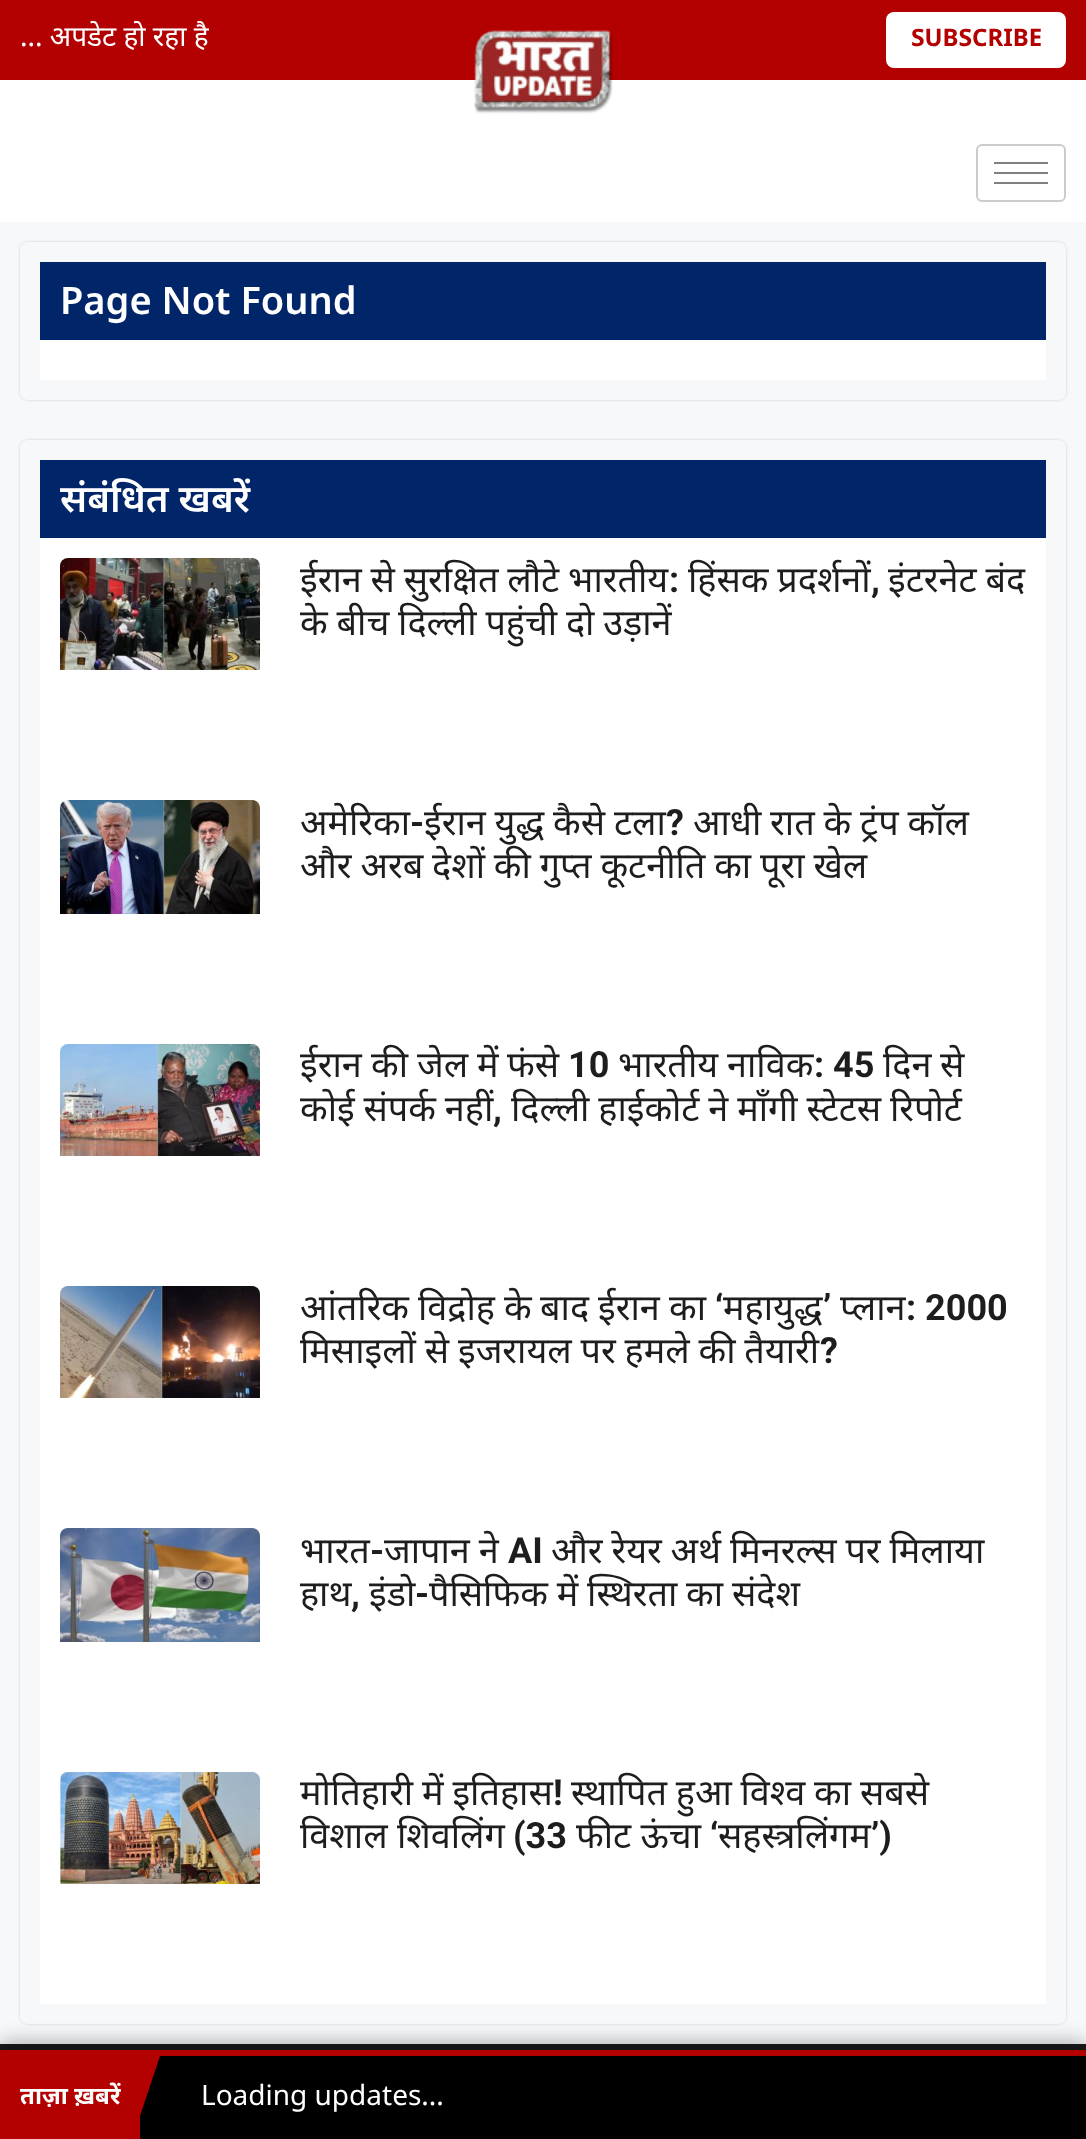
async function draw(canvas) {
  canvas.width = 1086;
  canvas.height = 2139;
  const ctx = canvas.getContext('2d');
  ctx.miterLimit = 4;
  ctx.fontKerning = 'normal';
  function label(s, x, y, font, color) {
    ctx.font = font;
    ctx.fillStyle = color;
    ctx.fillText(s, x, y);
  }
  function rect(x, y, w, h, color) {
    ctx.fillStyle = color;
    ctx.fillRect(x, y, w, h);
  }
  function roundedRect(x, y, w, h, r, color) {
    ctx.fillStyle = color;
    ctx.beginPath();
    ctx.roundRect(x, y, w, h, r);
    ctx.fill();
  }
  async function image(src, x, y, w, h) {
    const img = new Image();
    img.src = src;
    await img.decode();
    ctx.drawImage(img, x, y, w, h);
  }
  let path;

  rect(0, 0, 1086, 2139, '#f7f8f9');
  rect(0, 80, 1086, 142, '#fff');
  rect(0, 0, 1086, 80, '#b30000');
  label('... अपडेट हो रहा है', 20, 46, '28px Noto Sans Devanagari', '#fff');
  roundedRect(886, 12, 180, 56, 8, '#fff');
  label('SUBSCRIBE', 911, 46, 'bold 24px Noto Sans Devanagari', '#b30000');
  await image('assets/img1.png', 474, 30, 139, 84);
  ctx.beginPath();
  ctx.roundRect(977, 145, 88, 56, 5);
  ctx.strokeStyle = '#ccc';
  ctx.lineWidth = 2;
  ctx.stroke();
  rect(994, 162, 54, 2, '#808080');
  rect(994, 172, 54, 2, '#808080');
  rect(994, 182, 54, 2, '#808080');
  rect(0, 2044, 1086, 6, '#1b1b1b');
  ctx.fillStyle = '#0000004d';
  ctx.filter = 'blur(10px)';
  ctx.beginPath();
  ctx.rect(0, 2042, 1086, 90);
  ctx.fill();
  ctx.filter = 'none';
  rect(140, 2056, 946, 83, '#000');
  rect(0, 2050, 1086, 6, '#b30000');
  rect(0, 2056, 140, 83, '#b30000');
  label('ताज़ा ख़बरें', 20, 2104, 'bold 24px Noto Sans Devanagari', '#fff');
  ctx.fillStyle = '#b30000';
  path = new Path2D('M130 2056H160L130 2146Z');
  ctx.fill(path);
  label('Loading updates...', 201, 2105, '28px Noto Sans Devanagari', '#fff');
  ctx.save();
  path = new Path2D('M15 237H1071V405H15ZM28 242H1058C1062.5 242 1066 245.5 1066 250V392C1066 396.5 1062.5 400 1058 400H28C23.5 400 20 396.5 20 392V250C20 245.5 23.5 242 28 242Z');
  ctx.clip(path, 'evenodd');
  ctx.fillStyle = '#00000080';
  ctx.filter = 'blur(2px)';
  ctx.beginPath();
  ctx.roundRect(22, 244, 1042, 154, 6);
  ctx.fill();
  ctx.filter = 'none';
  ctx.restore();
  rect(40, 262, 1006, 78, '#002569');
  label('Page Not Found', 60, 314, '600 38px Noto Sans', '#fff');
  rect(40, 340, 1006, 40, '#fff');
  ctx.save();
  path = new Path2D('M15 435H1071V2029H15ZM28 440H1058C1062.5 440 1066 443.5 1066 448V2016C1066 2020.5 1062.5 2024 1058 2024H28C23.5 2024 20 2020.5 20 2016V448C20 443.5 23.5 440 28 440Z');
  ctx.clip(path, 'evenodd');
  ctx.fillStyle = '#00000080';
  ctx.filter = 'blur(2px)';
  ctx.beginPath();
  ctx.roundRect(22, 442, 1042, 1580, 6);
  ctx.fill();
  ctx.filter = 'none';
  ctx.restore();
  rect(40, 460, 1006, 78, '#002569');
  label('संबंधित खबरें', 60, 512, '600 38px Noto Sans', '#fff');
  rect(40, 538, 1006, 1466, '#fff');
  await image('assets/img2.png', 60, 558, 200, 112);
  ctx.wordSpacing = '-0.5px';
  label('ईरान से सुरक्षित लौटे भारतीय', 300, 592, '36px Noto Sans', '#1d1d1d');
  ctx.wordSpacing = '0px';
  label(':', 669, 592, 'bold 36px Roboto', '#1d1d1d');
  ctx.wordSpacing = '-0.5px';
  label('हिंसक प्रदर्शनों', 688, 592, '36px Noto Sans', '#1d1d1d');
  ctx.wordSpacing = '0px';
  label(',', 871, 592, 'bold 36px Roboto', '#1d1d1d');
  ctx.wordSpacing = '-0.5px';
  label('इंटरनेट बंद', 888, 592, '36px Noto Sans', '#1d1d1d');
  label('के बीच दिल्ली पहुंची दो उड़ानें', 300, 635, '36px Noto Sans', '#1d1d1d');
  await image('assets/img3.png', 60, 800, 200, 114);
  ctx.wordSpacing = '0px';
  label('अमेरिका', 300, 835, '36px Noto Sans', '#1d1d1d');
  label('-', 410, 835, 'bold 36px Roboto', '#1d1d1d');
  ctx.wordSpacing = '-0.5px';
  label('ईरान युद्ध कैसे टला', 424, 835, '36px Noto Sans', '#1d1d1d');
  ctx.wordSpacing = '0px';
  label('?', 666, 835, 'bold 36px Roboto', '#1d1d1d');
  ctx.wordSpacing = '-0.5px';
  label('आधी रात के ट्रंप कॉल', 693, 835, '36px Noto Sans', '#1d1d1d');
  label('और अरब देशों की गुप्त कूटनीति का पूरा खेल', 300, 878, '36px Noto Sans', '#1d1d1d');
  await image('assets/img4.png', 60, 1044, 200, 112);
  ctx.wordSpacing = '0px';
  label('ईरान', 300, 1077, '36px Noto Sans', '#1d1d1d');
  label('की', 371, 1077, '36px Noto Sans', '#1d1d1d');
  label('जेल', 417, 1077, '36px Noto Sans', '#1d1d1d');
  label('में', 477, 1077, '36px Noto Sans', '#1d1d1d');
  label('फंसे', 507, 1077, '36px Noto Sans', '#1d1d1d');
  label('10', 568, 1077, 'bold 36px Roboto', '#1d1d1d');
  label('भारतीय', 618, 1077, '36px Noto Sans', '#1d1d1d');
  label('नाविक', 727, 1077, '36px Noto Sans', '#1d1d1d');
  label(': 45', 814, 1077, 'bold 36px Roboto', '#1d1d1d');
  label('दिन', 883, 1077, '36px Noto Sans', '#1d1d1d');
  label('से', 940, 1077, '36px Noto Sans', '#1d1d1d');
  ctx.wordSpacing = '-0.5px';
  label('कोई संपर्क नहीं', 300, 1121, '36px Noto Sans', '#1d1d1d');
  ctx.wordSpacing = '0px';
  label(',', 493, 1121, 'bold 36px Roboto', '#1d1d1d');
  ctx.wordSpacing = '-0.5px';
  label('दिल्ली हाईकोर्ट ने माँगी स्टेटस रिपोर्ट', 511, 1121, '36px Noto Sans', '#1d1d1d');
  await image('assets/img5.png', 60, 1286, 200, 112);
  ctx.wordSpacing = '0px';
  label('आंतरिक', 300, 1320, '36px Noto Sans', '#1d1d1d');
  label('विद्रोह', 418, 1320, '36px Noto Sans', '#1d1d1d');
  label('के', 504, 1320, '36px Noto Sans', '#1d1d1d');
  label('बाद', 540, 1320, '36px Noto Sans', '#1d1d1d');
  label('ईरान', 598, 1320, '36px Noto Sans', '#1d1d1d');
  label('का', 669, 1320, '36px Noto Sans', '#1d1d1d');
  label('‘', 715, 1320, 'bold 36px Roboto', '#1d1d1d');
  label('महायुद्ध', 723, 1320, '36px Noto Sans', '#1d1d1d');
  label('’', 823, 1320, 'bold 36px Roboto', '#1d1d1d');
  label('प्लान', 840, 1320, '36px Noto Sans', '#1d1d1d');
  label(': 2000', 906, 1320, 'bold 36px Roboto', '#1d1d1d');
  ctx.wordSpacing = '-0.5px';
  label('मिसाइलों से इजरायल पर हमले की तैयारी', 300, 1363, '36px Noto Sans', '#1d1d1d');
  ctx.wordSpacing = '0px';
  label('?', 820, 1363, 'bold 36px Roboto', '#1d1d1d');
  await image('assets/img6.png', 60, 1528, 200, 114);
  label('भारत', 300, 1563, '36px Noto Sans', '#1d1d1d');
  label('-', 370, 1563, 'bold 36px Roboto', '#1d1d1d');
  ctx.wordSpacing = '-0.5px';
  label('जापान ने', 384, 1563, '36px Noto Sans', '#1d1d1d');
  ctx.wordSpacing = '0px';
  label('AI', 508, 1563, 'bold 36px Roboto', '#1d1d1d');
  ctx.wordSpacing = '-0.5px';
  label('और रेयर अर्थ मिनरल्स पर मिलाया', 551, 1563, '36px Noto Sans', '#1d1d1d');
  ctx.wordSpacing = '0px';
  label('हाथ', 300, 1606, '36px Noto Sans', '#1d1d1d');
  label('इंडो', 369, 1606, '36px Noto Sans', '#1d1d1d');
  label('-', 415, 1606, 'bold 36px Roboto', '#1d1d1d');
  ctx.wordSpacing = '-0.5px';
  label('पैसिफिक में स्थिरता का संदेश', 429, 1606, '36px Noto Sans', '#1d1d1d');
  ctx.wordSpacing = '0px';
  label(',', 351, 1606, 'bold 36px Roboto', '#1d1d1d');
  await image('assets/img7.png', 60, 1772, 200, 112);
  ctx.wordSpacing = '-0.5px';
  label('मोतिहारी में इतिहास', 300, 1805, '36px Noto Sans', '#1d1d1d');
  ctx.wordSpacing = '0px';
  label('!', 553, 1805, 'bold 36px Roboto', '#1d1d1d');
  ctx.wordSpacing = '-0.5px';
  label('स्थापित हुआ विश्व का सबसे', 571, 1805, '36px Noto Sans', '#1d1d1d');
  ctx.wordSpacing = '0px';
  label('विशाल शिवलिंग', 300, 1848, '36px Noto Sans', '#1d1d1d');
  label('(33', 513, 1848, 'bold 36px Roboto', '#1d1d1d');
  label('फीट ऊंचा', 576, 1848, '36px Noto Sans', '#1d1d1d');
  label('‘', 710, 1848, 'bold 36px Roboto', '#1d1d1d');
  label('सहस्त्रलिंगम', 718, 1848, '36px Noto Sans', '#1d1d1d');
  label('’)', 871, 1848, 'bold 36px Roboto', '#1d1d1d');
}

draw(document.querySelector('canvas'));
